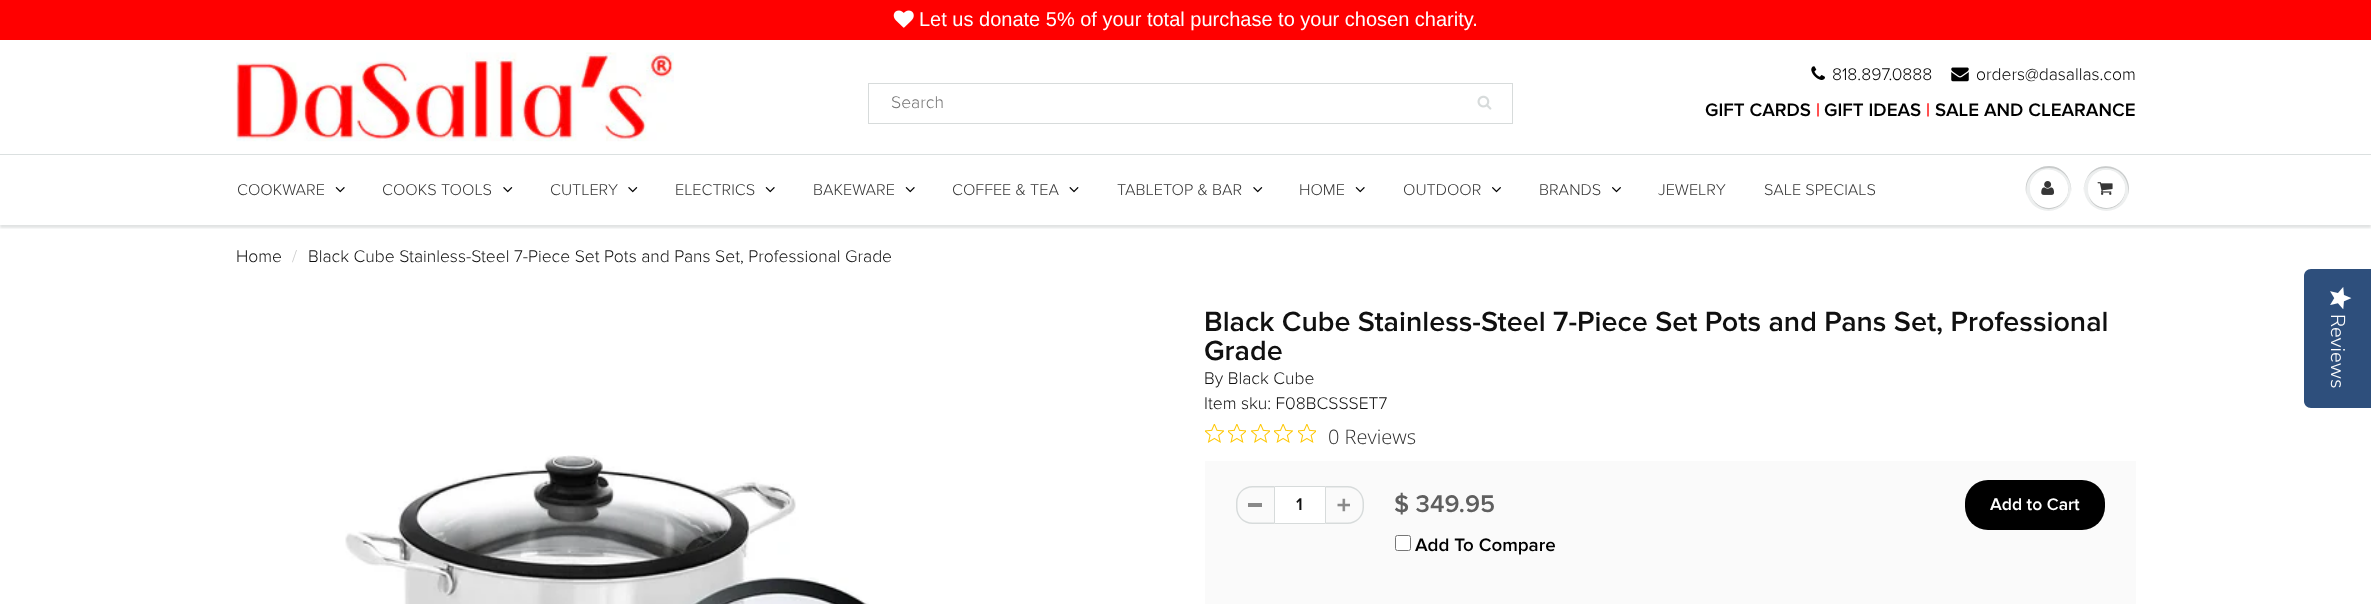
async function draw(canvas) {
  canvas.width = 2371;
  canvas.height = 604;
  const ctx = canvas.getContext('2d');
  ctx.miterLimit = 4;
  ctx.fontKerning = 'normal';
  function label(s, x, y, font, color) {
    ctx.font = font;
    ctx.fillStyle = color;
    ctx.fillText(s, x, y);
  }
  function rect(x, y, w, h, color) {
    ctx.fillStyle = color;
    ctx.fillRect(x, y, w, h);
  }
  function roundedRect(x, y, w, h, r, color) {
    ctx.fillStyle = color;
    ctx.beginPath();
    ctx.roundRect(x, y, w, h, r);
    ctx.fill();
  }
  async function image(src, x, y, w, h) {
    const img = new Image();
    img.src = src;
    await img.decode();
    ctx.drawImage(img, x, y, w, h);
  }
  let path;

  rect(0, 0, 2371, 604, '#fff');
  rect(0, 0, 2371, 40, '#f00');
  await image('assets/img1.png', 893, 10, 21, 18);
  label('Let us donate 5% of your total purchase to your chosen charity.', 919, 26, '20px Liberation Sans', '#fff');
  await image('assets/img2.png', 236, 52, 438, 90);
  ctx.strokeStyle = '#d7dbdb';
  ctx.strokeRect(868.5, 83.5, 644, 40);
  label('Search', 891, 108, '300 17.5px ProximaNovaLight', '#757575');
  await image('assets/img3.png', 1477, 95, 15, 15);
  await image('assets/img4.png', 1811, 66, 14, 14);
  label('818.897.0888', 1832, 80, '300 17.5px ProximaNovaLight', '#000');
  await image('assets/img5.png', 1951, 67, 18, 15);
  label('orders@dasallas.com', 1976, 80, '300 17.5px ProximaNovaLight', '#000');
  label('GIFT CARDS', 1705, 116, '600 18.75px ProximaNovaLight', '#000');
  label('|', 1816, 116, '600 18.75px ProximaNovaLight', '#f00');
  label('GIFT IDEAS', 1824, 116, '600 18.75px ProximaNovaLight', '#000');
  label('|', 1926, 116, '600 18.75px ProximaNovaLight', '#f00');
  label('SALE AND CLEARANCE', 1935, 116, '600 18.75px ProximaNovaLight', '#000');
  ctx.fillStyle = '#edefef';
  ctx.beginPath();
  ctx.arc(2048.5, 188.5, 22.5, 0, 2 * Math.PI);
  ctx.fill();
  ctx.fillStyle = '#c9cbcb';
  path = new Path2D('M2049 168C2064 168 2072 181 2071 192C2072 187 2070 181 2067 176C2052 154 2019 172 2027 196C2024 183 2031 168 2049 168Z');
  ctx.fill(path);
  ctx.fillStyle = '#edefef';
  ctx.beginPath();
  ctx.arc(2106.5, 188.5, 22.5, 0, 2 * Math.PI);
  ctx.fill();
  ctx.fillStyle = '#c9cbcb';
  path = new Path2D('M2106 168C2123 168 2130 183 2128 195C2135 171 2102 155 2088 176C2085 181 2083 187 2084 193C2083 181 2090 168 2106 168Z');
  ctx.fill(path);
  ctx.save();
  ctx.beginPath();
  ctx.rect(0, 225, 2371, 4);
  ctx.clip();
  ctx.fillStyle = '#0b191c1f';
  ctx.filter = 'blur(1px)';
  ctx.beginPath();
  ctx.rect(0, 156, 2371, 72);
  ctx.fill();
  ctx.filter = 'none';
  ctx.restore();
  rect(0, 154, 2371, 1, '#dbe0e0');
  label('COOKWARE', 237, 195, '300 16.25px ProximaNovaLight', '#363636');
  await image('assets/img6.png', 335, 187, 10, 6);
  label('COOKS TOOLS', 382, 195, '300 16.25px ProximaNovaLight', '#363636');
  await image('assets/img7.png', 503, 187, 10, 6);
  label('CUTLERY', 550, 195, '300 16.25px ProximaNovaLight', '#363636');
  await image('assets/img7.png', 628, 187, 10, 6);
  label('ELECTRICS', 675, 195, '300 16.25px ProximaNovaLight', '#363636');
  await image('assets/img6.png', 765, 187, 10, 6);
  label('BAKEWARE', 813, 195, '300 16.25px ProximaNovaLight', '#363636');
  await image('assets/img6.png', 905, 187, 10, 6);
  label('COFFEE & TEA', 952, 195, '300 16.25px ProximaNovaLight', '#363636');
  await image('assets/img8.png', 1069, 187, 10, 6);
  label('TABLETOP & BAR', 1117, 195, '300 16.25px ProximaNovaLight', '#363636');
  await image('assets/img7.png', 1253, 187, 10, 6);
  label('HOME', 1299, 195, '300 16.25px ProximaNovaLight', '#363636');
  await image('assets/img6.png', 1355, 187, 10, 6);
  label('OUTDOOR', 1403, 195, '300 16.25px ProximaNovaLight', '#363636');
  await image('assets/img9.png', 1492, 187, 9, 6);
  label('BRANDS', 1539, 195, '300 16.25px ProximaNovaLight', '#363636');
  await image('assets/img9.png', 1612, 187, 9, 6);
  label('JEWELRY', 1658, 195, '300 16.25px ProximaNovaLight', '#363636');
  label('SALE SPECIALS', 1764, 195, '300 16.25px ProximaNovaLight', '#363636');
  ctx.fillStyle = '#c9cbcb';
  path = new Path2D('M2030 189.5C2030 194.5 2032 199.5 2035.5 203.5C2050.5 218.5 2075 201 2066.5 182C2073 200.5 2050 216.5 2035.5 202C2032 199 2030 194 2030 189.5Z');
  ctx.fill(path);
  ctx.fillStyle = '#fff';
  ctx.beginPath();
  ctx.arc(2049, 189, 19, 0, 2 * Math.PI);
  ctx.fill();
  path = new Path2D('M2049 171C2065 171 2070 188 2065 200C2078 179 2047 157 2033 178C2030 183 2029 188 2031 193C2029 183 2035 171 2049 171Z');
  ctx.fill(path);
  await image('assets/img10.png', 2041, 181, 13, 14);
  ctx.fillStyle = '#c9cbcb';
  path = new Path2D('M2088.5 195C2093.5 216 2125.5 212.5 2125 189C2124.5 210 2095 214.5 2088.5 195Z');
  ctx.fill(path);
  roundedRect(2088, 170, 37, 38, 18.5, '#fff');
  path = new Path2D('M2106 171C2121 171 2127 184.5 2124 195C2125.5 190.5 2125.5 185.5 2123.5 181.5C2115.5 162.5 2087.5 168 2088 189.5C2088 180.5 2094 171 2106 171Z');
  ctx.fill(path);
  await image('assets/img11.png', 2097, 182, 16, 13);
  label('Home', 236, 262, '300 17.5px ProximaNovaLight', '#101010');
  label('/', 292, 262, '300 17.5px ProximaNovaLight', '#ccc');
  label('Black Cube Stainless-Steel 7-Piece Set Pots and Pans Set, Professional Grade', 308, 262, '300 17.5px ProximaNovaLight', '#101010');
  await image('assets/img12.png', 345, 455, 524, 149);
  label('Black Cube Stainless-Steel 7-Piece Set Pots and Pans Set, Professional', 1204, 331, '600 28.75px ProximaNovaLight', '#101010');
  label('Grade', 1204, 360, '600 28.75px ProximaNovaLight', '#101010');
  label('By Black Cube', 1204, 384, '300 17.5px ProximaNovaLight', '#101010');
  label('Item sku: F08BCSSSET7', 1204, 409, '300 17.5px ProximaNovaLight', '#101010');
  await image('assets/img13.png', 1205, 424, 19, 19);
  await image('assets/img14.png', 1228, 424, 18, 19);
  await image('assets/img15.png', 1251, 424, 19, 19);
  await image('assets/img16.png', 1274, 424, 19, 19);
  await image('assets/img14.png', 1298, 424, 18, 19);
  label('0 Reviews', 1328, 444, '300 20px Open Sans', '#2c2c2c');
  rect(1205, 461, 931, 143, '#fafafa');
  rect(1248, 503, 14, 4, '#898989');
  ctx.fillStyle = '#d7dbdb';
  path = new Path2D('M1252.5 486H1274V524H1252.5C1243.5 524 1236 516.5 1236 507.5V502.5C1236 493.5 1243.5 486 1252.5 486ZM1252.5 487.5H1274V522.5H1252.5C1244 522.5 1237.5 516 1237.5 507.5V502.5C1237.5 494 1244 487.5 1252.5 487.5Z');
  ctx.fill(path, 'evenodd');
  ctx.fillStyle = '#fff';
  ctx.beginPath();
  ctx.rect(1274.5, 486.5, 51, 37);
  ctx.fill();
  ctx.stroke();
  label('1', 1296, 510, '600 17.5px ProximaNovaLight', '#101010');
  await image('assets/img17.png', 1337, 498, 13, 14);
  ctx.fillStyle = '#d7dbdb';
  path = new Path2D('M1326 486H1347.5C1356.5 486 1364 493.5 1364 502.5V507.5C1364 516.5 1356.5 524 1347.5 524H1326ZM1326 487.5H1347.5C1356 487.5 1362.5 494 1362.5 502.5V507.5C1362.5 516 1356 522.5 1347.5 522.5H1326Z');
  ctx.fill(path, 'evenodd');
  label('$ 349.95', 1394, 512, '600 25px ProximaNovaLight', '#5f5f5f');
  ctx.fillStyle = '#fff';
  ctx.beginPath();
  ctx.roundRect(1395.5, 535.5, 15, 15, 2);
  ctx.fill();
  ctx.strokeStyle = '#767676';
  ctx.stroke();
  label('Add To Compare', 1415, 551, '600 18.75px ProximaNovaLight', '#000');
  roundedRect(1965, 480, 140, 50, 23, '#000');
  label('Add to Cart', 1990, 510, '600 17.5px ProximaNovaLight', '#fff');
  ctx.fillStyle = '#2e4f7c';
  path = new Path2D('M2371 269V408H2311C2307 408 2304 405 2304 401V276C2304 272 2307 269 2311 269Z');
  ctx.fill(path);
  await image('assets/img18.png', 2330, 287, 22, 23);
  ctx.font = '300 20px Nunito Sans';
  ctx.fillStyle = '#fff';
  ctx.save();
  ctx.translate(2331, 314);
  ctx.rotate(90 * Math.PI / 180);
  ctx.fillText('Reviews', 0, 0);
  ctx.restore();
}

draw(document.querySelector('canvas'));
